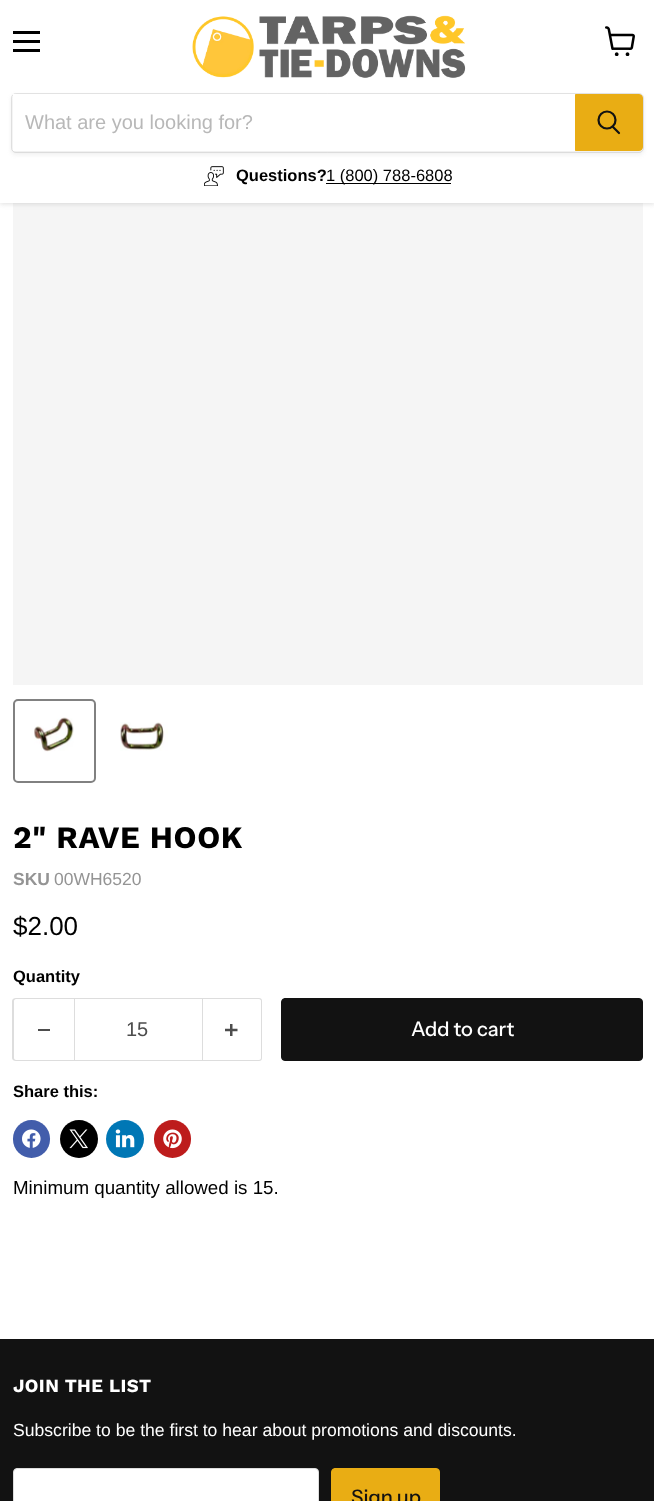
async function draw(canvas) {
  canvas.width = 654;
  canvas.height = 1501;
  const ctx = canvas.getContext('2d');
  ctx.miterLimit = 4;
  ctx.fontKerning = 'normal';
  function label(s, x, y, font, color) {
    ctx.font = font;
    ctx.fillStyle = color;
    ctx.fillText(s, x, y);
  }
  function rect(x, y, w, h, color) {
    ctx.fillStyle = color;
    ctx.fillRect(x, y, w, h);
  }
  function roundedRect(x, y, w, h, r, color) {
    ctx.fillStyle = color;
    ctx.beginPath();
    ctx.roundRect(x, y, w, h, r);
    ctx.fill();
  }
  async function image(src, x, y, w, h) {
    const img = new Image();
    img.src = src;
    await img.decode();
    ctx.drawImage(img, x, y, w, h);
  }
  let path;

  rect(0, 0, 654, 1501, '#fff');
  rect(13, 203, 630, 482, '#f5f5f5');
  ctx.fillStyle = '#80808040';
  ctx.filter = 'blur(2.5px)';
  ctx.beginPath();
  ctx.rect(0, 1, 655, 203);
  ctx.fill();
  ctx.filter = 'none';
  rect(0, 0, 654, 203, '#fff');
  rect(13, 31, 27, 3, '#000');
  rect(13, 40, 27, 3, '#000');
  rect(13, 49, 27, 3, '#000');
  await image('assets/img1.png', 605, 26, 30, 30);
  await image('assets/img2.png', 192, 15, 274, 63);
  ctx.fillStyle = '#8080801c';
  ctx.filter = 'blur(2px)';
  ctx.beginPath();
  ctx.roundRect(11, 95, 633, 60, 5);
  ctx.fill();
  ctx.filter = 'none';
  ctx.beginPath();
  ctx.roundRect(11.5, 93.5, 632, 59, 4.5);
  ctx.strokeStyle = '#80808033';
  ctx.stroke();
  rect(13, 94, 562, 57, '#fff');
  label('What are you looking for?', 25, 129, '20px Liberation Sans', '#b8b8b8');
  ctx.fillStyle = '#e9ad14';
  ctx.beginPath();
  ctx.roundRect(575.5, 94.5, 67, 56, [0, 3.5, 3.5, 0]);
  ctx.fill();
  ctx.strokeStyle = '#e9ad14';
  ctx.stroke();
  path = new Path2D('M619 133L613 127');
  ctx.strokeStyle = '#121212';
  ctx.lineWidth = 2.2;
  ctx.lineCap = 'round';
  ctx.stroke(path);
  ctx.beginPath();
  ctx.arc(607, 120, 8.5, 0, 2 * Math.PI);
  ctx.stroke();
  await image('assets/img3.png', 204, 166, 20, 20);
  label('Questions?', 236, 181, 'bold 16.5px Liberation Sans', '#000');
  rect(326, 183, 125, 1, '#000');
  label('1 (800) 788-6808', 326, 181, '16.5px Liberation Sans', '#000');
  ctx.beginPath();
  ctx.roundRect(14, 700, 81, 82, 4);
  ctx.strokeStyle = '#818181';
  ctx.lineWidth = 2;
  ctx.stroke();
  await image('assets/img4.png', 34, 717, 40, 35);
  await image('assets/img5.png', 120, 722, 48, 29);
  ctx.letterSpacing = '0.6px';
  label('2" RAVE HOOK', 13, 848, 'bold 31.25px Work Sans', '#000');
  ctx.letterSpacing = '0px';
  label('SKU', 13, 885, 'bold 17.5px Liberation Sans', '#949494');
  label('00WH6520', 54, 885, '17.5px Liberation Sans', '#949494');
  label('$2.00', 13, 935, '26px Liberation Sans', '#000');
  label('Quantity', 13, 982, 'bold 16.5px Liberation Sans', '#000');
  ctx.fillStyle = '#ddd';
  path = new Path2D('M16 998H74V1061H16C14 1061 12 1060 12 1058V1001C12 999 14 998 16 998ZM16 999H74V1060H16C15 1060 14 1059 14 1058V1001C14 1000 15 999 16 999Z');
  ctx.fill(path, 'evenodd');
  rect(38, 1029, 12, 2, '#4d4d4d');
  ctx.strokeStyle = '#ddd';
  ctx.lineWidth = 1;
  ctx.strokeRect(74.5, 998.5, 128, 62);
  label('15', 126, 1036, '20px Liberation Sans', '#4d4d4d');
  ctx.fillStyle = '#ddd';
  path = new Path2D('M202 998H259C261 998 262 999 262 1001V1058C262 1060 261 1061 259 1061H202ZM202 999H259C260 999 261 1000 261 1001V1058C261 1059 260 1060 259 1060H202Z');
  ctx.fill(path, 'evenodd');
  await image('assets/img6.png', 225, 1024, 13, 12);
  ctx.fillStyle = '#121212';
  ctx.beginPath();
  ctx.roundRect(281.5, 998.5, 361, 62, 3.5);
  ctx.fill();
  ctx.strokeStyle = '#121212';
  ctx.stroke();
  label('Add to cart', 411, 1036, '500 20px Instrument Sans', '#fff');
  label('Share this:', 13, 1097, 'bold 16.5px Liberation Sans', '#000');
  roundedRect(13, 1120, 37, 38, 18.5, '#425dab');
  await image('assets/img7.png', 22, 1129, 19, 19);
  ctx.fillStyle = '#000';
  ctx.beginPath();
  ctx.arc(79, 1139, 19, 0, 2 * Math.PI);
  ctx.fill();
  await image('assets/img8.png', 69, 1129, 19, 20);
  ctx.fillStyle = '#0077b5';
  ctx.beginPath();
  ctx.arc(125, 1139, 19, 0, 2 * Math.PI);
  ctx.fill();
  await image('assets/img9.png', 115, 1129, 20, 19);
  roundedRect(154, 1120, 37, 38, 18.5, '#bd1c1c');
  await image('assets/img10.png', 163, 1129, 19, 20);
  label('Minimum quantity allowed is 15.', 13, 1194, '18.75px Liberation Sans', '#000');
  rect(0, 1339, 654, 162, '#121212');
  ctx.letterSpacing = '0.4px';
  label('JOIN THE LIST', 13, 1392, 'bold 18.5px Work Sans', '#fff');
  ctx.letterSpacing = '0px';
  label('Subscribe to be the first to hear about promotions and discounts.', 13, 1436, '17.6px Liberation Sans', '#fff');
  ctx.beginPath();
  ctx.roundRect(13.5, 1468.5, 305, 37, 3.5);
  ctx.fill();
  ctx.strokeStyle = '#ddd';
  ctx.stroke();
  ctx.fillStyle = '#e9ad14';
  ctx.beginPath();
  ctx.roundRect(331.5, 1468.5, 108, 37, 3.5);
  ctx.fill();
  ctx.strokeStyle = '#e9ad14';
  ctx.stroke();
  label('Sign up', 351, 1504, '500 20px Instrument Sans', '#121212');
}

draw(document.querySelector('canvas'));
